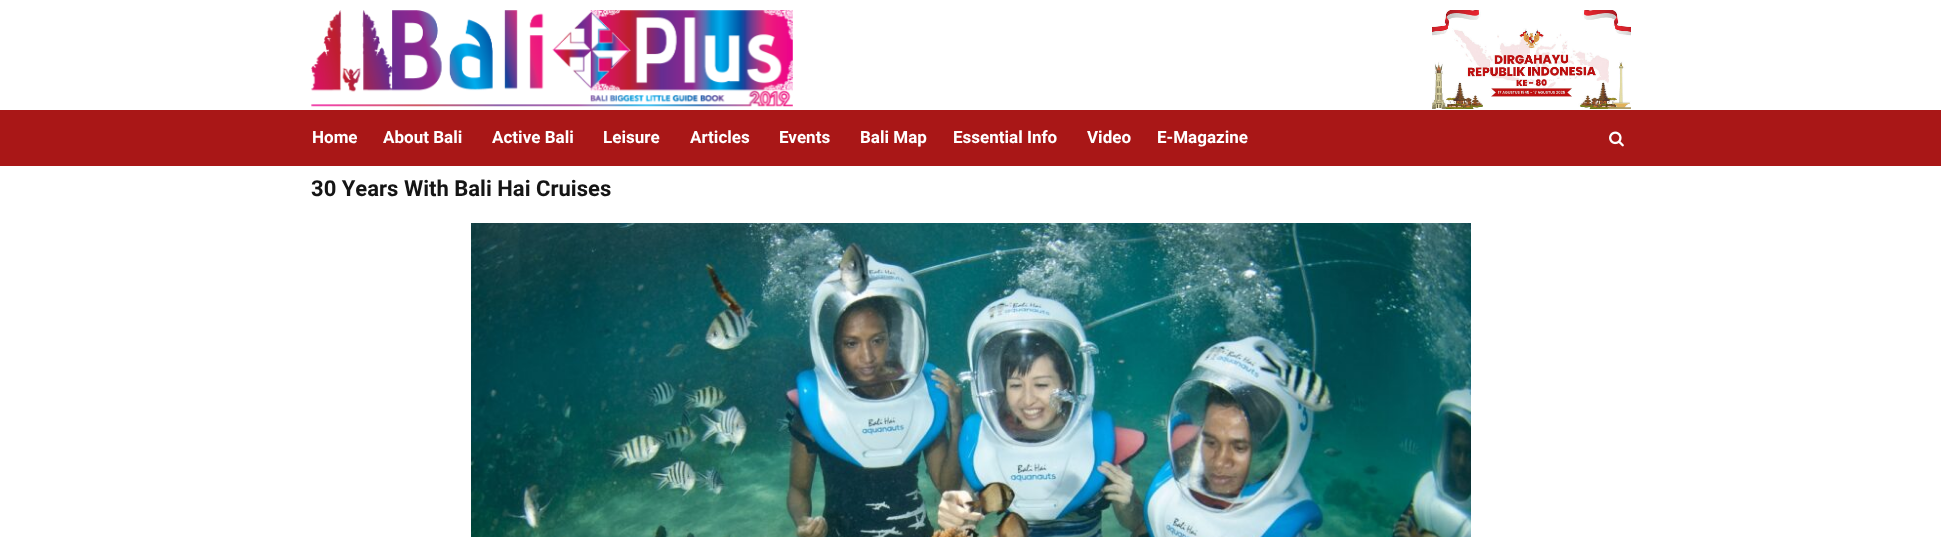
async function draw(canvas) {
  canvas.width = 1941;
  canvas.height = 537;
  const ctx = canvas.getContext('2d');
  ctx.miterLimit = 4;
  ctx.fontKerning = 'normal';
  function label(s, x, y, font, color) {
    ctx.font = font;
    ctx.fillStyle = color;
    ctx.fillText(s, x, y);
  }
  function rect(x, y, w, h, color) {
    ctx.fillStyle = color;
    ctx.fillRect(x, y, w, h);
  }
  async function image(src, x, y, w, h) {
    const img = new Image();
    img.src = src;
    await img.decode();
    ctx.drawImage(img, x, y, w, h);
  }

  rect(0, 0, 1941, 537, '#fff');
  await image('assets/img1.png', 311, 10, 482, 97);
  await image('assets/img2.png', 1432, 10, 199, 99);
  rect(0, 110, 1941, 56, '#a91717');
  label('Home', 312, 143, 'bold 17px Heebo', '#fff');
  label('About Bali', 383, 143, 'bold 17px Heebo', '#fff');
  label('Active Bali', 492, 143, 'bold 17px Heebo', '#fff');
  label('Leisure', 603, 143, 'bold 17px Heebo', '#fff');
  label('Articles', 690, 143, 'bold 17px Heebo', '#fff');
  label('Events', 779, 143, 'bold 17px Heebo', '#fff');
  label('Bali Map', 860, 143, 'bold 17px Heebo', '#fff');
  label('Essential Info', 953, 143, 'bold 17px Heebo', '#fff');
  label('Video', 1087, 143, 'bold 17px Heebo', '#fff');
  label('E-Magazine', 1157, 143, 'bold 17px Heebo', '#fff');
  await image('assets/img3.png', 1609, 131, 15, 16);
  label('30 Years With Bali Hai Cruises', 311, 196, 'bold 22px Heebo', '#151515');
  await image('assets/img4.png', 471, 223, 1000, 314);
}

draw(document.querySelector('canvas'));
